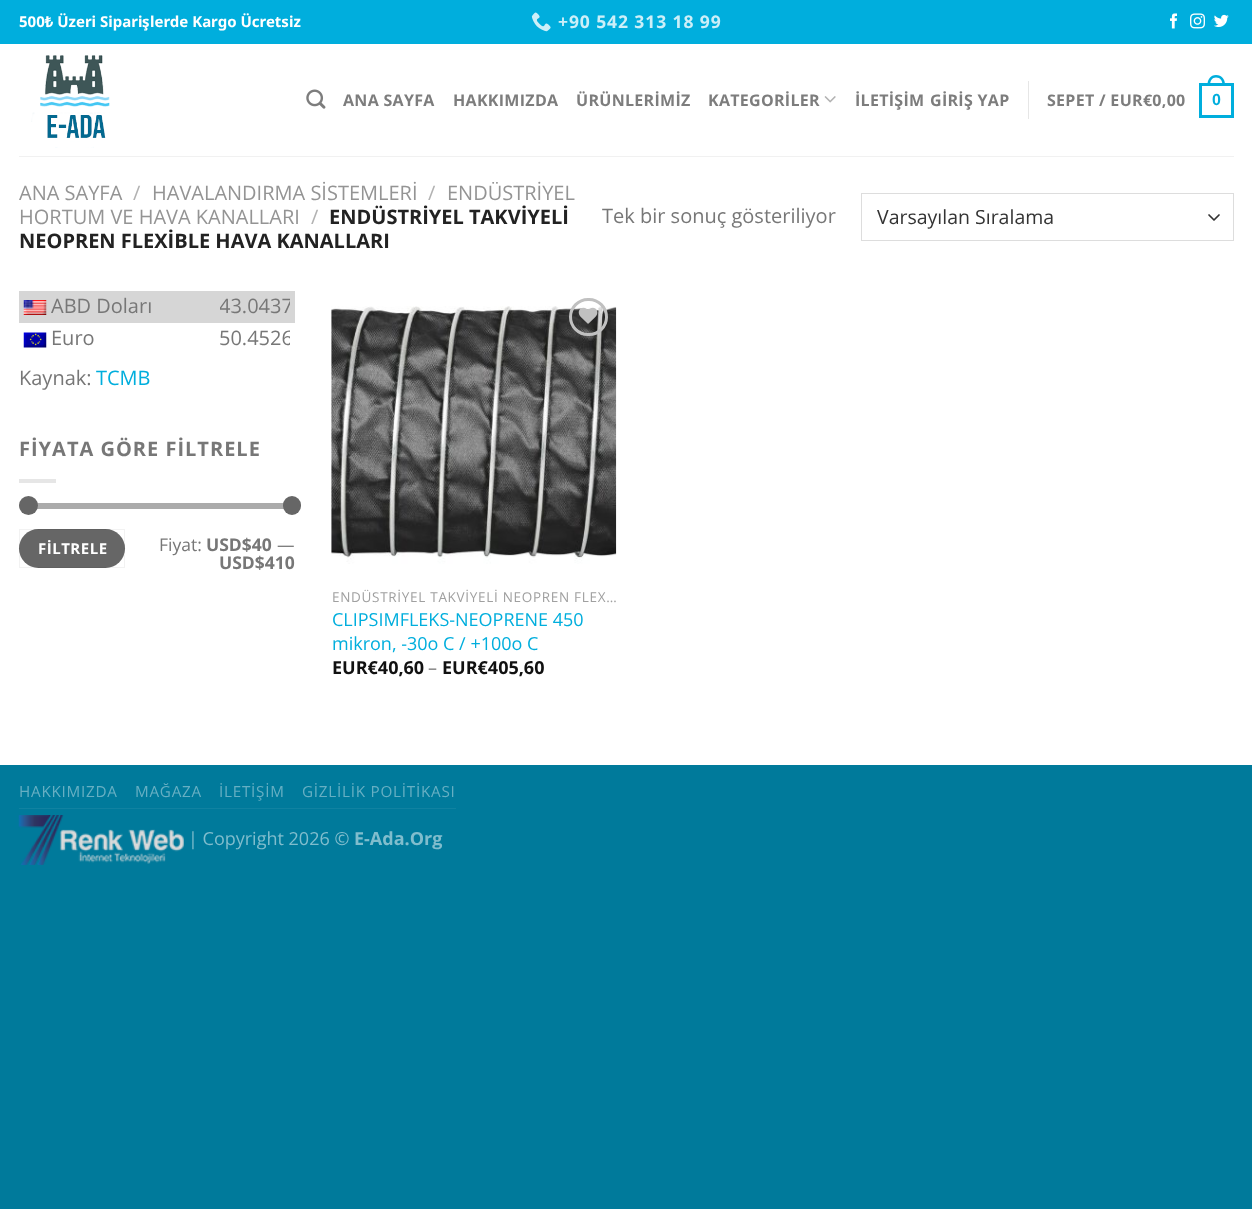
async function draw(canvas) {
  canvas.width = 1252;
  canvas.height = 1209;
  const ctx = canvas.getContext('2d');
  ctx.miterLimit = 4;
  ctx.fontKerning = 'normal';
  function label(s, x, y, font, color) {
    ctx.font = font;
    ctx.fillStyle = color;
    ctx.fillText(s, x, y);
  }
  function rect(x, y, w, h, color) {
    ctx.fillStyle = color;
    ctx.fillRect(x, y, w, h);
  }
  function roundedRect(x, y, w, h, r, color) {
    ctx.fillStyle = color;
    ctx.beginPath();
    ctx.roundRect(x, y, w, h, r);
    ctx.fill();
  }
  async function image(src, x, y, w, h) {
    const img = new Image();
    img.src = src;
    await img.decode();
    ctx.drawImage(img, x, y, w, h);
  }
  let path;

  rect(0, 0, 1252, 1209, '#007a9b');
  rect(0, 44, 1252, 721, '#fff');
  rect(0, 0, 1252, 44, '#00aedd');
  label('500₺ Üzeri Sipari', 19, 27, 'bold 15px Noto Sans', '#fff');
  label('ş', 142, 27, 'bold 15px Open Sans', '#fff');
  label('lerde Kargo Ücretsiz', 150, 27, 'bold 15px Noto Sans', '#fff');
  await image('assets/img1.png', 531, 12, 20, 20);
  ctx.letterSpacing = '0.9px';
  label('+90 542 313 18 99', 558, 28, 'bold 17.5px Open Sans', '#cceff8');
  await image('assets/img2.png', 1170, 13, 7, 16);
  await image('assets/img3.png', 1190, 13, 15, 16);
  await image('assets/img4.png', 1214, 14, 15, 13);
  await image('assets/img5.png', 31, 55, 79, 93);
  await image('assets/img6.png', 306, 89, 20, 20);
  ctx.letterSpacing = '0.3px';
  label('ANA SAYFA', 343, 106, 'bold 16px Open Sans', '#7d7d7d');
  label('HAKKIMIZDA', 453, 106, 'bold 16px Open Sans', '#7d7d7d');
  label('ÜRÜNLERİMİZ', 576, 106, 'bold 16px Open Sans', '#7d7d7d');
  label('KATEGORİLER', 708, 106, 'bold 16px Open Sans', '#7d7d7d');
  await image('assets/img7.png', 824, 96, 12, 7);
  label('İLETİŞİM', 855, 106, 'bold 16px Open Sans', '#7d7d7d');
  label('GİRİŞ YAP', 930, 106, 'bold 16px Open Sans', '#7d7d7d');
  rect(1028, 81, 1, 38, '#e6e6e6');
  label('SEPET / EUR€0,00', 1047, 106, 'bold 16px Open Sans', '#7d7d7d');
  ctx.strokeStyle = '#00aedd';
  ctx.lineWidth = 3;
  ctx.strokeRect(1200.5, 84.5, 32, 32);
  ctx.fillStyle = '#00aedd';
  path = new Path2D('M1216 75C1222 75 1225 79.5 1225 85H1207.5C1207.5 79.5 1210.5 75 1216 75ZM1216 77.5C1220.5 77.5 1222.5 81 1222.5 85H1210C1210 81 1212 77.5 1216 77.5Z');
  ctx.fill(path, 'evenodd');
  label('0', 1212, 105, 'bold 16px Liberation Sans', '#00aedd');
  rect(19, 156, 1215, 1, '#f1f1f1');
  ctx.letterSpacing = '0px';
  label('ANA SAYFA', 19, 200, '20px Open Sans', '#949494');
  label('/', 133, 200, '20px Open Sans', '#b2b2b2');
  label('HAVALANDIRMA SİSTEMLERİ', 152, 200, '20px Open Sans', '#949494');
  label('/', 428, 200, '20px Open Sans', '#b2b2b2');
  label('ENDÜSTRİYEL', 447, 200, '20px Open Sans', '#949494');
  label('HORTUM VE HAVA KANALLARI', 19, 224, '20px Open Sans', '#949494');
  label('/', 311, 224, '20px Open Sans', '#b2b2b2');
  label('ENDÜSTRİYEL TAKVİYELİ', 329, 224, 'bold 20px Open Sans', '#222');
  label('NEOPREN FLEXİBLE HAVA KANALLARI', 19, 248, 'bold 20px Open Sans', '#222');
  label('Tek bir sonuç gösteriliyor', 602, 223, '20px Open Sans', '#777');
  path = new Path2D('M1209 215L1214 220L1219 215');
  ctx.strokeStyle = '#333';
  ctx.lineWidth = 1.7;
  ctx.lineCap = 'round';
  ctx.lineJoin = 'round';
  ctx.stroke(path);
  ctx.strokeStyle = '#ddd';
  ctx.lineWidth = 1;
  ctx.lineJoin = 'miter';
  ctx.strokeRect(861.5, 193.5, 372, 47);
  label('Varsayılan Sıralama', 877, 224, '19.5px Open Sans', '#333');
  rect(19, 291, 276, 32, '#d6d6d6');
  await image('assets/img8.png', 23, 300, 24, 15);
  label('ABD Doları', 51, 313, '20px Open Sans', '#777');
  ctx.save();
  ctx.beginPath();
  ctx.rect(220, 291, 70, 32);
  ctx.clip();
  label('43.0437', 219, 313, '20px Open Sans', '#777');
  ctx.restore();
  await image('assets/img9.png', 23, 332, 24, 16);
  label('Euro', 51, 345, '20px Open Sans', '#777');
  ctx.save();
  ctx.beginPath();
  ctx.rect(220, 323, 70, 32);
  ctx.clip();
  label('50.4526', 219, 345, '20px Open Sans', '#777');
  ctx.restore();
  label('Kaynak:', 19, 385, '20px Open Sans', '#777');
  label('TCMB', 96, 385, '20px Open Sans', '#00aedd');
  ctx.letterSpacing = '1px';
  label('FİYATA GÖRE FİLTRELE', 19, 456, 'bold 20px Open Sans', '#777');
  rect(19, 479, 37, 4, '#e6e6e6');
  roundedRect(19, 503, 276, 6, 3, '#f1f1f1');
  roundedRect(19, 503, 276, 6, 3, '#66666680');
  ctx.fillStyle = '#666';
  ctx.beginPath();
  ctx.arc(28.5, 505.5, 9.5, 0, 2 * Math.PI);
  ctx.fill();
  roundedRect(283, 496, 18, 19, 9, '#666');
  roundedRect(19, 529, 106, 39, 19.5, '#666');
  ctx.strokeStyle = '#0000000d';
  ctx.strokeRect(19.5, 529.5, 105, 38);
  ctx.letterSpacing = '0.5px';
  label('FİLTRELE', 38, 554, 'bold 15px Open Sans', '#fff');
  ctx.letterSpacing = '0px';
  label('Fiyat:', 159, 551, '17.5px Open Sans', '#777');
  label('USD$40', 206, 551, 'bold 17.5px Open Sans', '#777');
  label('—', 277, 551, '17.5px Open Sans', '#777');
  label('USD$410', 219, 569, 'bold 17.5px Open Sans', '#777');
  await image('assets/img11.png', 331, 306, 286, 258);
  ctx.beginPath();
  ctx.roundRect(570.5, 299.5, 36, 35, 17.5);
  ctx.strokeStyle = '#c0c0c0';
  ctx.lineWidth = 3;
  ctx.stroke();
  await image('assets/img10.png', 578, 307, 20, 17);
  ctx.letterSpacing = '0.7px';
  label('ENDÜSTRİYEL TAKVİYELİ NEOPREN FLEX…', 332, 602, '13.5px Open Sans', '#a0a0a0');
  ctx.letterSpacing = '0px';
  label('CLIPSIMFLEKS-NEOPRENE 450', 332, 626, '18px Open Sans', '#00aedd');
  label('mikron, -30o C / +100o C', 332, 650, '18px Open Sans', '#00aedd');
  label('EUR€40,60', 332, 674, 'bold 18px Open Sans', '#111');
  label('–', 428, 674, '18px Open Sans', '#777');
  label('EUR€405,60', 442, 674, 'bold 18px Open Sans', '#111');
  rect(19, 808, 437, 1, '#1082a1');
  ctx.letterSpacing = '0.75px';
  label('HAKKIMIZDA', 19, 797, '15.25px Open Sans', '#66afc3');
  label('MAĞAZA', 135, 797, '15.25px Open Sans', '#66afc3');
  label('İLETİŞİM', 219, 797, '15.25px Open Sans', '#66afc3');
  label('GİZLİLİK POLİTİKASI', 302, 797, '15.25px Open Sans', '#66afc3');
  await image('assets/img12.png', 18, 815, 166, 50);
  ctx.letterSpacing = '0px';
  label('| Copyright 2026 ©', 188, 845, '18px Open Sans', '#80bdcd');
  label('E-Ada.Org', 354, 845, 'bold 18px Open Sans', '#80bdcd');
}

draw(document.querySelector('canvas'));
